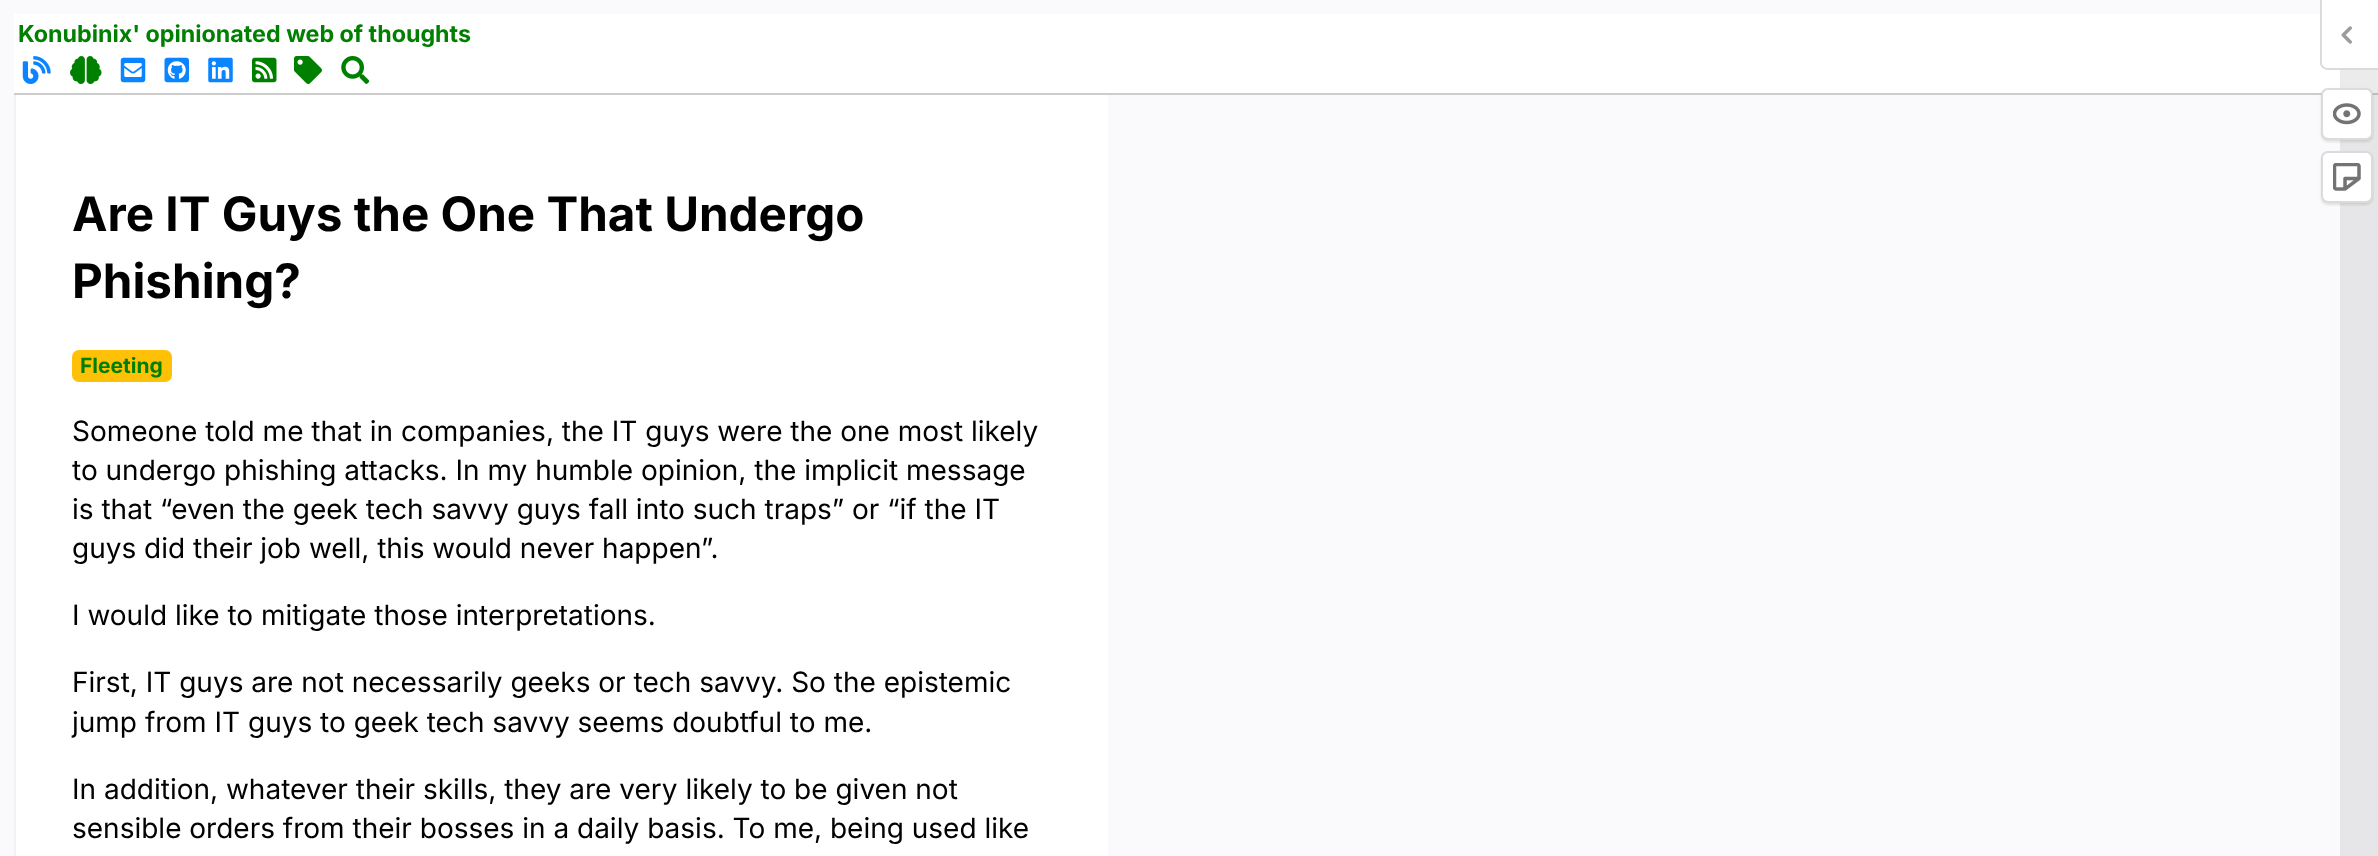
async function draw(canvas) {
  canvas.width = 2378;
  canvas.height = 856;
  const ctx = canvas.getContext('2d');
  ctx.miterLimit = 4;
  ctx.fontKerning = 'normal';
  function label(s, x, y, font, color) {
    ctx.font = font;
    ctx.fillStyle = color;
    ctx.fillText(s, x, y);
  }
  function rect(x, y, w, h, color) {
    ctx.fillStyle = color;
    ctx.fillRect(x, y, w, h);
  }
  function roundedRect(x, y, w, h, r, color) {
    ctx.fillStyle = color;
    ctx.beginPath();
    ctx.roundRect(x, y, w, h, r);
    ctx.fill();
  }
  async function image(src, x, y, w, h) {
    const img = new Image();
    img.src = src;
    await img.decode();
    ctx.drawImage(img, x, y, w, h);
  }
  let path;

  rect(0, 0, 2378, 856, '#fafafc');
  rect(2340, 95, 38, 761, '#e6e6e8');
  rect(14, 14, 2326, 79, '#fff');
  rect(2340, 70, 38, 23, '#ebebeb');
  rect(14, 93, 2308, 2, '#ccc');
  rect(2372, 93, 6, 2, '#bcbcbc');
  label('Konubinix\' opinionated web of thoughts', 18, 42, 'bold 23.25px Inter', '#008000');
  await image('assets/img1.png', 22, 56, 29, 28);
  await image('assets/img2.png', 70, 56, 32, 28);
  await image('assets/img3.png', 120, 57, 26, 26);
  await image('assets/img4.png', 164, 57, 25, 26);
  await image('assets/img5.png', 208, 57, 25, 26);
  await image('assets/img6.png', 252, 57, 25, 26);
  await image('assets/img7.png', 294, 56, 28, 28);
  await image('assets/img8.png', 341, 56, 29, 28);
  ctx.fillStyle = '#fff';
  ctx.beginPath();
  ctx.roundRect(2322, 0, 56, 68, [0, 0, 0, 5]);
  ctx.fill();
  ctx.fillStyle = '#dbdbdb';
  path = new Path2D('M2320 0H2378V70H2328C2324 70 2320 67 2320 63ZM2322 0H2378V68H2328C2325 68 2322 66 2322 63Z');
  ctx.fill(path, 'evenodd');
  await image('assets/img9.png', 2341, 26, 11, 18);
  ctx.fillStyle = '#0000001a';
  ctx.filter = 'blur(1px)';
  ctx.beginPath();
  ctx.roundRect(2321, 89, 52, 53, 7);
  ctx.fill();
  ctx.filter = 'none';
  ctx.fillStyle = '#fff';
  ctx.beginPath();
  ctx.roundRect(2322, 89, 50, 50, 6);
  ctx.fill();
  ctx.strokeStyle = '#dbdbdb';
  ctx.lineWidth = 2;
  ctx.stroke();
  await image('assets/img10.png', 2333, 103, 28, 22);
  ctx.fillStyle = '#0000001a';
  ctx.filter = 'blur(1px)';
  ctx.beginPath();
  ctx.roundRect(2321, 152, 52, 53, 7);
  ctx.fill();
  ctx.filter = 'none';
  ctx.fillStyle = '#fff';
  ctx.beginPath();
  ctx.roundRect(2322, 152, 50, 50, 6);
  ctx.fill();
  ctx.stroke();
  await image('assets/img11.png', 2333, 163, 28, 28);
  rect(16, 95, 1092, 761, '#fff');
  rect(14, 95, 2, 761, '#f2f2f2');
  label('Are IT Guys the One That Undergo', 72, 231, 'bold 47.6px Inter', '#000');
  label('Phishing?', 72, 298, 'bold 47.6px Inter', '#000');
  roundedRect(72, 350, 100, 32, 7, '#ffc107');
  label('Fleeting', 80, 373, 'bold 21px Inter', '#008000');
  label('Someone told me that in companies, the IT guys were the one most likely', 72, 441, '28px Inter', '#000');
  label('to undergo phishing attacks. In my humble opinion, the implicit message', 72, 480, '28px Inter', '#000');
  label('is that “even the geek tech savvy guys fall into such traps” or “if the IT', 72, 519, '28px Inter', '#000');
  label('guys did their job well, this would never happen”.', 72, 558, '28px Inter', '#000');
  label('I would like to mitigate those interpretations.', 72, 625, '28px Inter', '#000');
  label('First, IT guys are not necessarily geeks or tech savvy. So the epistemic', 72, 692, '28px Inter', '#000');
  label('jump from IT guys to geek tech savvy seems doubtful to me.', 72, 732, '28px Inter', '#000');
  label('In addition, whatever their skills, they are very likely to be given not', 72, 799, '28px Inter', '#000');
  label('sensible orders from their bosses in a daily basis. To me, being used like', 72, 838, '28px Inter', '#000');
}

draw(document.querySelector('canvas'));
